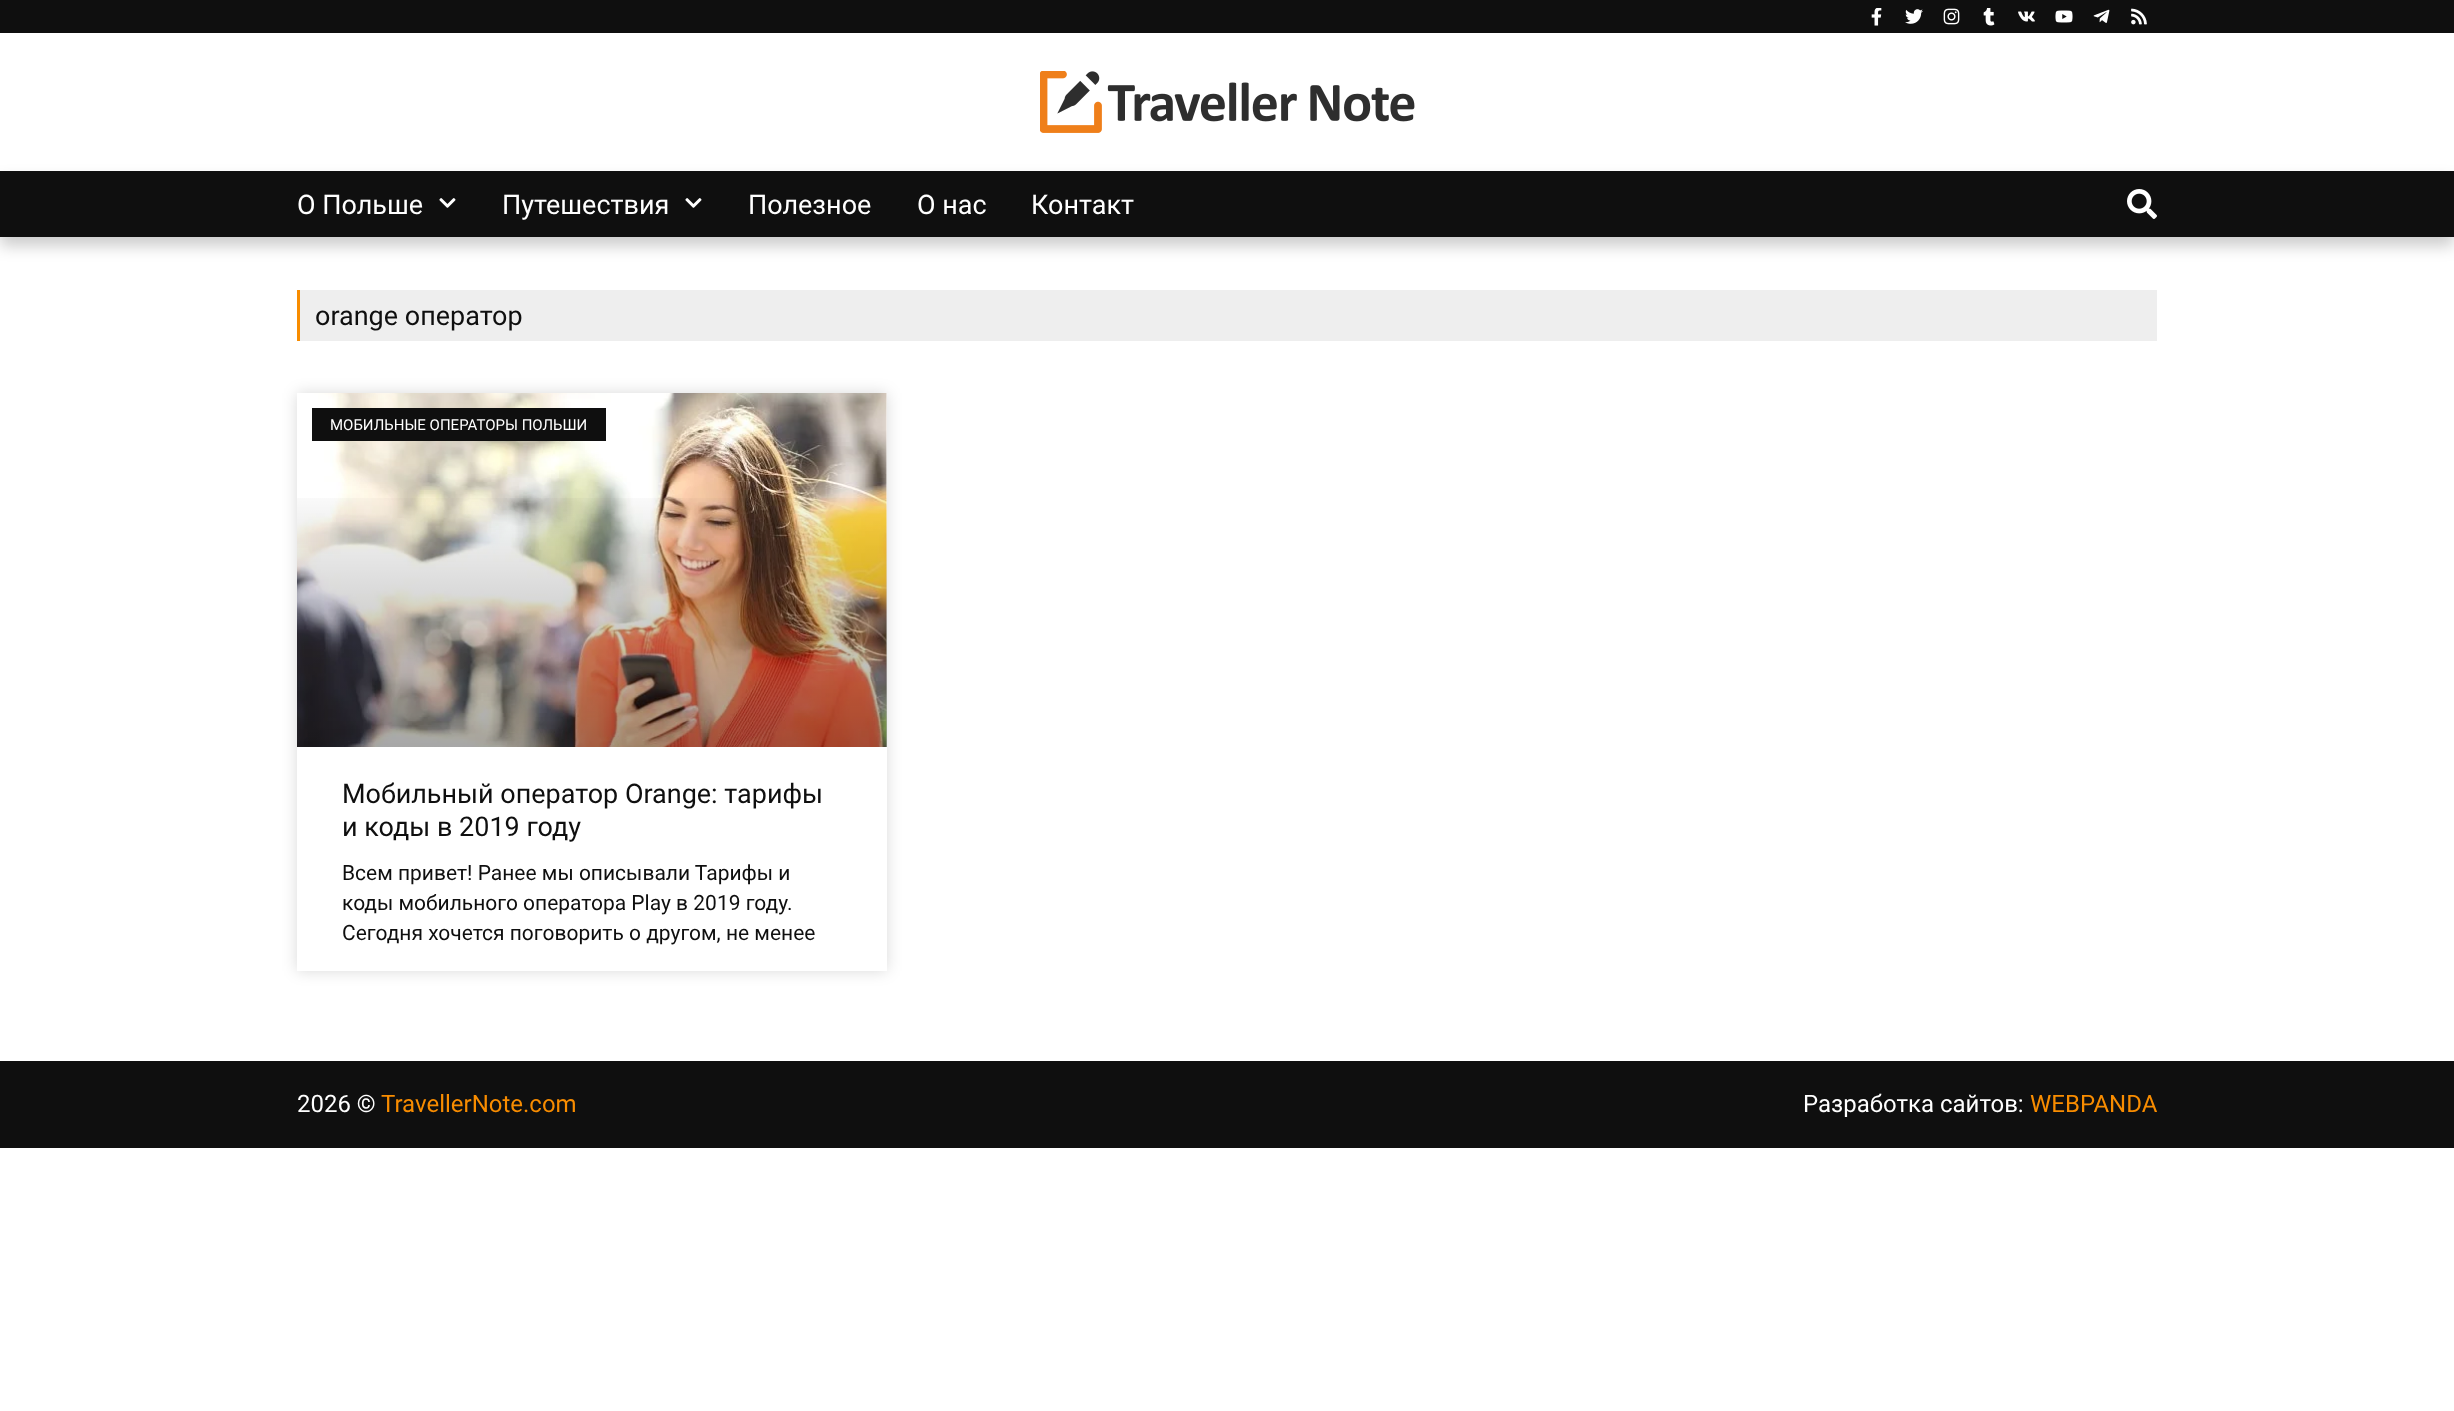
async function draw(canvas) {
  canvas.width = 2454;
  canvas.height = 1411;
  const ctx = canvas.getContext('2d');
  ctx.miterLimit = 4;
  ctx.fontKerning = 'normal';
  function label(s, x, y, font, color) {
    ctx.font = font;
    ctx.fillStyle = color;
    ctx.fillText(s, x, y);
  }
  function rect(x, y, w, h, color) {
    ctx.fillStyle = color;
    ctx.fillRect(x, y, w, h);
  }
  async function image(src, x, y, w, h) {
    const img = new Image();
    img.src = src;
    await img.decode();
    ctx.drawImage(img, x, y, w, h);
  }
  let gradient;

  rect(0, 0, 2454, 1411, '#fff');
  rect(0, 0, 2454, 33, '#0f0f0f');
  await image('assets/img1.png', 1871, 8, 11, 18);
  await image('assets/img2.png', 1905, 9, 18, 15);
  await image('assets/img3.png', 1943, 8, 17, 17);
  await image('assets/img4.png', 1983, 8, 12, 18);
  await image('assets/img5.png', 2018, 11, 17, 11);
  await image('assets/img6.png', 2055, 10, 18, 13);
  await image('assets/img7.png', 2093, 9, 17, 14);
  await image('assets/img8.png', 2131, 8, 16, 17);
  await image('assets/img9.png', 1040, 71, 375, 62);
  ctx.fillStyle = '#00000033';
  ctx.filter = 'blur(7.5px)';
  ctx.beginPath();
  ctx.rect(0, 180, 2454, 66);
  ctx.fill();
  ctx.filter = 'none';
  rect(0, 171, 2454, 66, '#0f0f0f');
  label('О Польше', 297, 214, '27px Roboto', '#fff');
  await image('assets/img10.png', 439, 198, 17, 10);
  label('Путешествия', 502, 214, '27px Roboto', '#fff');
  await image('assets/img10.png', 685, 198, 17, 10);
  label('Полезное', 748, 214, '27px Roboto', '#fff');
  label('О нас', 917, 214, '27px Roboto', '#fff');
  label('Контакт', 1031, 214, '27px Roboto', '#fff');
  await image('assets/img11.png', 2127, 189, 30, 30);
  rect(300, 290, 1857, 51, '#eee');
  rect(297, 290, 3, 51, '#f88c00');
  label('orange оператор', 315, 325, '27px Roboto', '#0f0f0f');
  ctx.fillStyle = '#00000026';
  ctx.filter = 'blur(7.5px)';
  ctx.beginPath();
  ctx.rect(297, 393, 590, 578);
  ctx.fill();
  ctx.filter = 'none';
  rect(297, 393, 590, 578, '#fff');
  await image('assets/img12.png', 297, 393, 590, 354);
  gradient = ctx.createLinearGradient(592, 747, 592, 393);
  gradient.addColorStop(0, '#00000059');
  gradient.addColorStop(0.75, '#00000000');
  ctx.fillStyle = gradient;
  ctx.fillRect(297, 498, 590, 249);
  rect(312, 408, 294, 33, '#0f0f0f');
  label('МОБИЛЬНЫЕ ОПЕРАТОРЫ ПОЛЬШИ', 330, 430, '15px Roboto', '#fff');
  label('Мобильный оператор Orange: тарифы', 342, 803, '27px Roboto', '#0f0f0f');
  label('и коды в 2019 году', 342, 836, '27px Roboto', '#0f0f0f');
  label('Всем привет! Ранее мы описывали Тарифы и', 342, 880, '21px Roboto', '#0f0f0f');
  label('коды мобильного оператора Play в 2019 году.', 342, 910, '21px Roboto', '#0f0f0f');
  label('Сегодня хочется поговорить о другом, не менее', 342, 940, '21px Roboto', '#0f0f0f');
  rect(0, 1061, 2454, 87, '#0f0f0f');
  label('2026 ©', 297, 1112, '24px Roboto', '#fff');
  label('TravellerNote.com', 381, 1112, '24px Roboto', '#f88c00');
  label('Разработка сайтов:', 1803, 1112, '24px Roboto', '#fff');
  label('WEBPANDA', 2030, 1112, '24px Roboto', '#f88c00');
}

draw(document.querySelector('canvas'));
